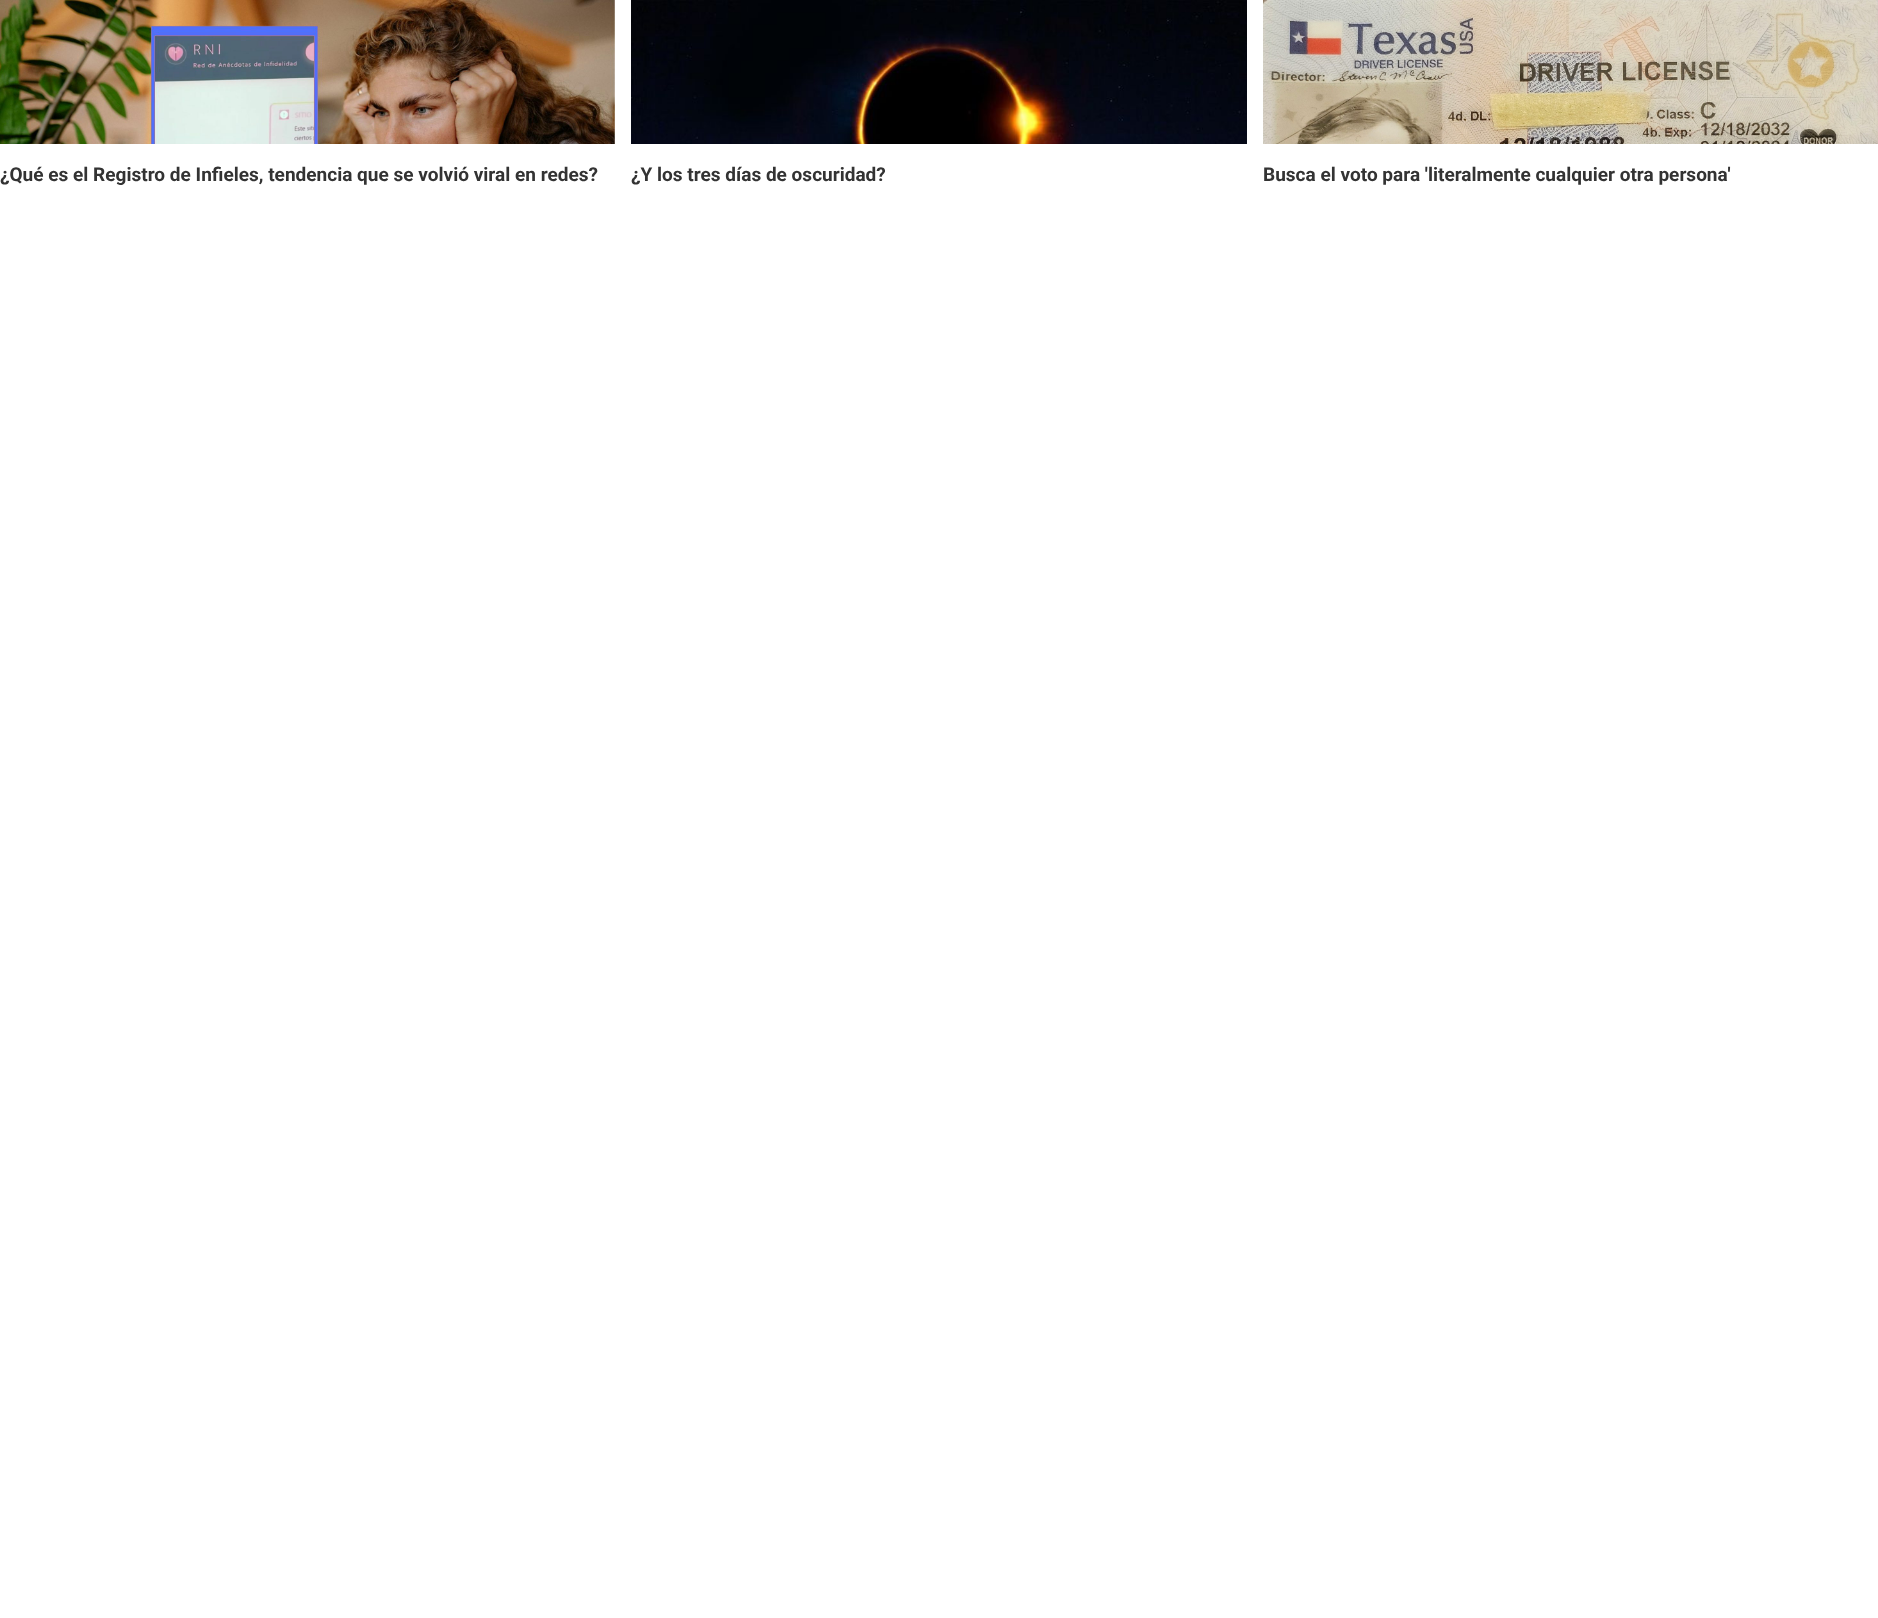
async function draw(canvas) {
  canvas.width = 1878;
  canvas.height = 1618;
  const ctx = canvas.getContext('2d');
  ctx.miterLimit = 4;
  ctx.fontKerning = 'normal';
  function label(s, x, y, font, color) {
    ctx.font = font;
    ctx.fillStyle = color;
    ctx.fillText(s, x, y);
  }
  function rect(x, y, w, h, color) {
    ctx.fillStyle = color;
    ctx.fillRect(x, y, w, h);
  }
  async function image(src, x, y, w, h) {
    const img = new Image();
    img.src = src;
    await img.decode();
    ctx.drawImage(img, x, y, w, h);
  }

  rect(0, 0, 1878, 1618, '#fff');
  await image('assets/img1.png', 0, 0, 615, 144);
  label('¿Qué es el Registro de Infieles, tendencia que se volvió viral en redes?', 0, 181, 'bold 19.05px Roboto', '#333');
  await image('assets/img2.png', 631, 0, 616, 144);
  label('¿Y los tres días de oscuridad?', 631, 181, 'bold 19.05px Roboto', '#333');
  await image('assets/img3.png', 1263, 0, 615, 144);
  label('Busca el voto para \'literalmente cualquier otra persona\'', 1263, 181, 'bold 19.05px Roboto', '#333');
}

draw(document.querySelector('canvas'));
